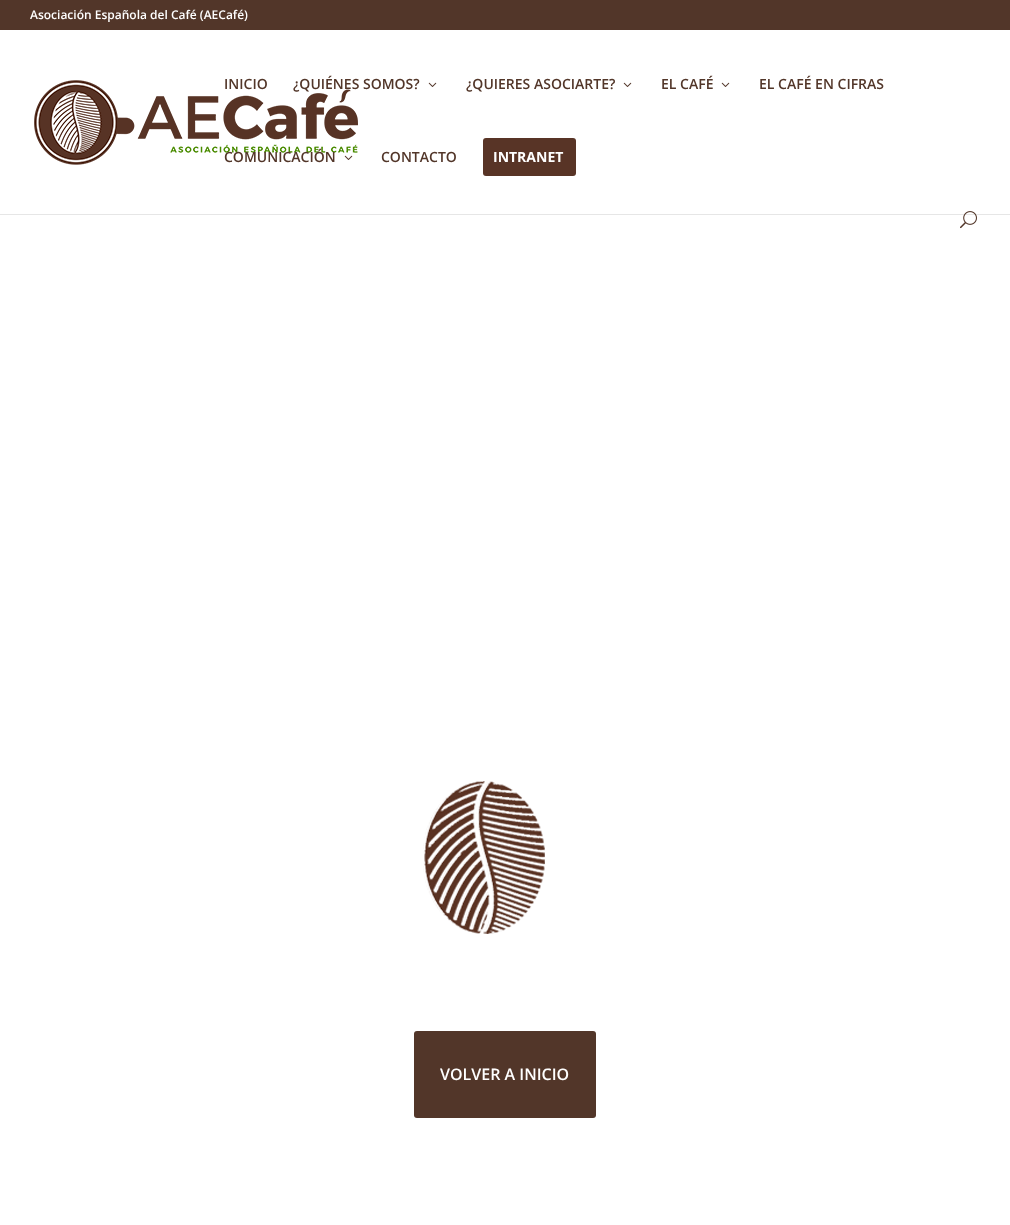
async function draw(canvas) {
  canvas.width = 1010;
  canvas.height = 1225;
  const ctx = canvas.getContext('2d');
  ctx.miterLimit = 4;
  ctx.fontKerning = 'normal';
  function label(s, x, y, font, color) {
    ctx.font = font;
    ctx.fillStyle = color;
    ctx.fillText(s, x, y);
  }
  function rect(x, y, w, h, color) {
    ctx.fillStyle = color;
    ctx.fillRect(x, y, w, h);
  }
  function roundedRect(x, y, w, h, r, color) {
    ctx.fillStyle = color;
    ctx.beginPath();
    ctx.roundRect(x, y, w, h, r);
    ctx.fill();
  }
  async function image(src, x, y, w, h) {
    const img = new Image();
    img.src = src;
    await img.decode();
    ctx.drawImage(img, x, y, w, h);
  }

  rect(0, 0, 1010, 1225, '#fff');
  rect(0, 0, 1010, 30, '#523629');
  label('Asociación Española del Café (AECafé)', 30, 19, '600 12px Open Sans', '#fff');
  rect(0, 214, 1010, 1, '#e6e6e6');
  await image('assets/img1.png', 34, 80, 324, 85);
  label('INICIO', 224, 89, '600 14px Open Sans', '#523629');
  label('¿QUIÉNES SOMOS?', 293, 89, '600 14px Open Sans', '#523629');
  await image('assets/img2.png', 428, 82, 9, 5);
  label('¿QUIERES ASOCIARTE?', 466, 89, '600 14px Open Sans', '#523629');
  await image('assets/img2.png', 623, 82, 9, 5);
  label('EL CAFÉ', 661, 89, '600 14px Open Sans', '#523629');
  await image('assets/img2.png', 721, 82, 9, 5);
  label('EL CAFÉ EN CIFRAS', 759, 89, '600 14px Open Sans', '#523629');
  label('COMUNICACIÓN', 224, 162, '600 14px Open Sans', '#523629');
  await image('assets/img2.png', 344, 155, 9, 5);
  label('CONTACTO', 381, 162, '600 14px Open Sans', '#523629');
  roundedRect(483, 138, 93, 38, 3, '#583426');
  label('INTRANET', 493, 162, 'bold 14px Open Sans', '#fff');
  await image('assets/img3.png', 960, 211, 17, 18);
  await image('assets/img4.png', 423, 781, 122, 153);
  roundedRect(414, 1031, 182, 87, 3, '#523629');
  label('VOLVER A INICIO', 440, 1080, '600 16px Open Sans', '#fff');
}

draw(document.querySelector('canvas'));
